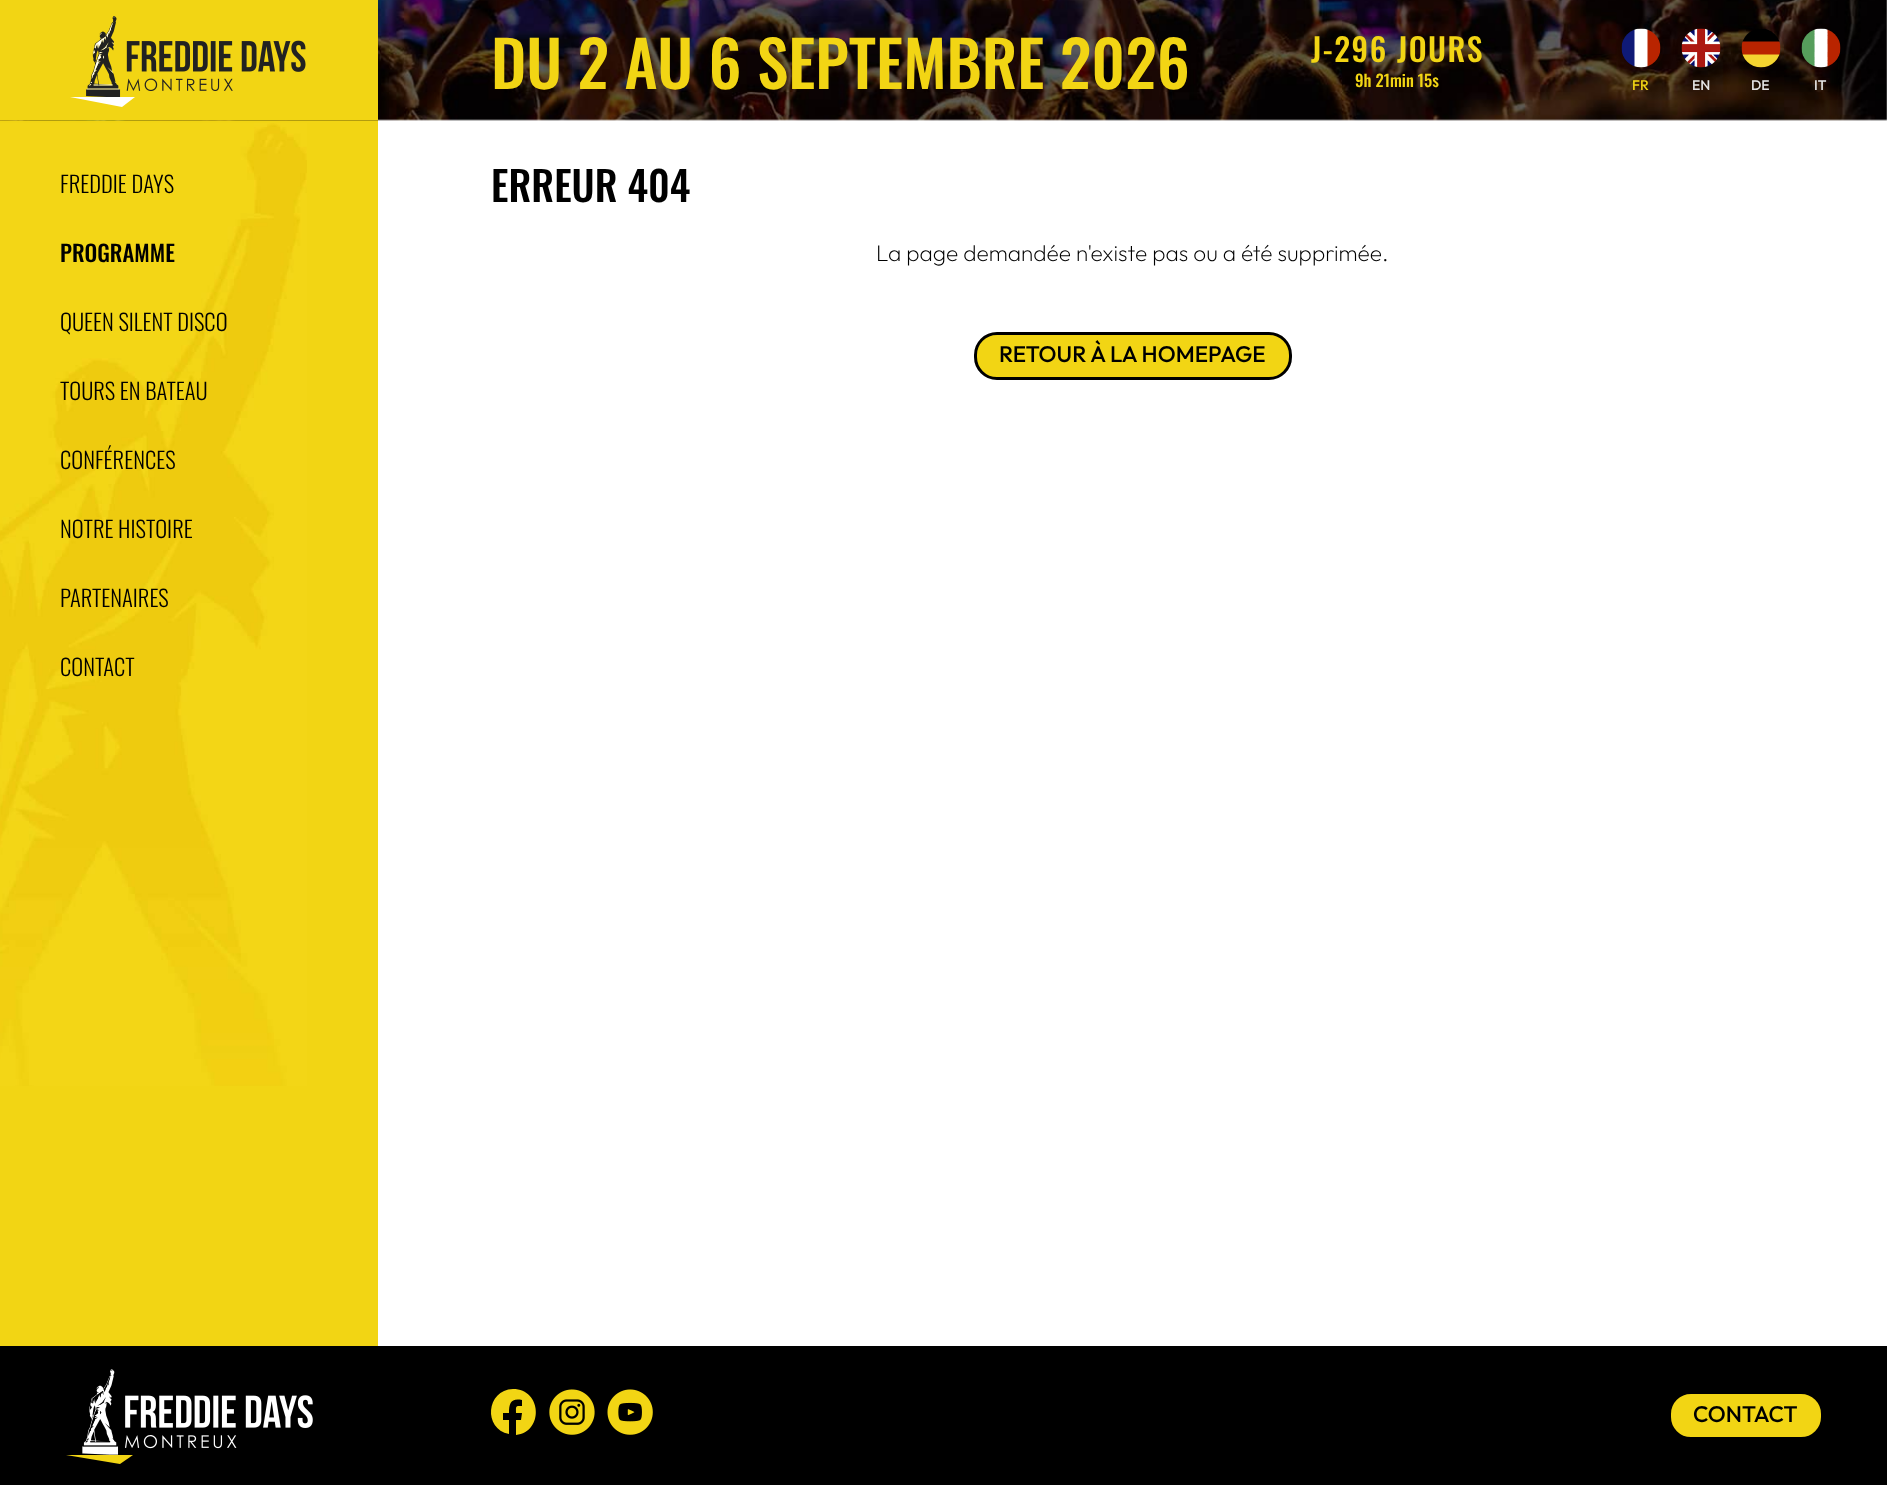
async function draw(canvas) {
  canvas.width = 1887;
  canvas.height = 1485;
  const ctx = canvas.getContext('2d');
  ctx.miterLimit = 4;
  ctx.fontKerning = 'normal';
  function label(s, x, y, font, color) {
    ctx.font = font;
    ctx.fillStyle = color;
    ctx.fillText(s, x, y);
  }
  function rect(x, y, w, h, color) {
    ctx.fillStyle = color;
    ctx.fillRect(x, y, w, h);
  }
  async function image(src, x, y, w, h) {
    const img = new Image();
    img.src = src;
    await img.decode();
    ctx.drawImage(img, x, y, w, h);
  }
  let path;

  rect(0, 0, 1887, 1485, '#000');
  rect(0, 120, 378, 1226, '#f2d514');
  rect(378, 0, 1509, 1346, '#fff');
  await image('assets/img1.png', 0, 0, 1887, 121);
  rect(0, 0, 378, 120, '#f2d514');
  await image('assets/img2.png', 86, 16, 220, 81);
  await image('assets/img3.png', 86, 16, 34, 74);
  ctx.fillStyle = '#fff';
  path = new Path2D('M122 107L135 97H70Z');
  ctx.fill(path);
  label('DU 2 AU 6 SEPTEMBRE 2026', 491, 89, '500 63.4px Oswald', '#f2d514');
  ctx.letterSpacing = '1.5px';
  label('J-296 JOURS', 1311, 62, '500 31.75px Oswald', '#f2d514');
  ctx.letterSpacing = '0px';
  label('9h 21min 15s', 1355, 87, '500 16.5px Oswald', '#f2d514');
  ctx.save();
  path = new Path2D('M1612 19H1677V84H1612ZM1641.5 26C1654 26 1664 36 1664 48.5C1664 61 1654 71 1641.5 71C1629 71 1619 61 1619 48.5C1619 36 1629 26 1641.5 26Z');
  ctx.clip(path, 'evenodd');
  ctx.fillStyle = '#00000040';
  ctx.filter = 'blur(3px)';
  ctx.beginPath();
  ctx.roundRect(1622, 29, 45, 45, 22.5);
  ctx.fill();
  ctx.filter = 'none';
  ctx.restore();
  await image('assets/img4.png', 1621, 28, 40, 40);
  label('FR', 1632, 90, '500 14px Outfit', '#f2d514');
  ctx.save();
  path = new Path2D('M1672 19H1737V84H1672ZM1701.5 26C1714 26 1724 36 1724 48.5C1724 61 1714 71 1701.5 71C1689 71 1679 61 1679 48.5C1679 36 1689 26 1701.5 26Z');
  ctx.clip(path, 'evenodd');
  ctx.fillStyle = '#00000040';
  ctx.filter = 'blur(3px)';
  ctx.beginPath();
  ctx.roundRect(1682, 29, 45, 45, 22.5);
  ctx.fill();
  ctx.filter = 'none';
  ctx.restore();
  await image('assets/img5.png', 1681, 28, 40, 40);
  label('EN', 1692, 90, '500 14px Outfit', '#e5e5e5');
  ctx.save();
  path = new Path2D('M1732 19H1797V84H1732ZM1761.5 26C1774 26 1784 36 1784 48.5C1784 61 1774 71 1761.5 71C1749 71 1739 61 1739 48.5C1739 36 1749 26 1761.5 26Z');
  ctx.clip(path, 'evenodd');
  ctx.fillStyle = '#00000040';
  ctx.filter = 'blur(3px)';
  ctx.beginPath();
  ctx.roundRect(1742, 29, 45, 45, 22.5);
  ctx.fill();
  ctx.filter = 'none';
  ctx.restore();
  await image('assets/img6.png', 1741, 29, 40, 39);
  label('DE', 1751, 90, '500 14px Outfit', '#e5e5e5');
  await image('assets/img7.png', 1801, 28, 40, 40);
  label('IT', 1814, 90, '500 14px Outfit', '#e5e5e5');
  await image('assets/img8.png', 0, 123, 307, 963);
  label('FREDDIE DAYS', 60, 193, '300 22.6px Oswald', '#000');
  label('PROGRAMME', 60, 262, '500 22.6px Oswald', '#000');
  label('QUEEN SILENT DISCO', 60, 331, '300 22.6px Oswald', '#000');
  label('TOURS EN BATEAU', 60, 400, '300 22.6px Oswald', '#000');
  label('CONFÉRENCES', 60, 469, '300 22.6px Oswald', '#000');
  label('NOTRE HISTOIRE', 60, 538, '300 22.6px Oswald', '#000');
  label('PARTENAIRES', 60, 607, '300 22.6px Oswald', '#000');
  label('CONTACT', 60, 676, '300 22.6px Oswald', '#000');
  label('ERREUR 404', 491, 202, '500 40.75px Oswald', '#000');
  label('La page demandée n\'existe pas ou a été supprimée.', 876, 261, '200 22.6px Outfit', '#000');
  ctx.fillStyle = '#f2d514';
  ctx.beginPath();
  ctx.roundRect(975.5, 333.5, 315, 45, 21.5);
  ctx.fill();
  ctx.strokeStyle = '#000';
  ctx.lineWidth = 3;
  ctx.stroke();
  label('RETOUR À LA HOMEPAGE', 999, 362, '500 22.6px Outfit', '#000');
  await image('assets/img9.png', 82, 1369, 231, 86);
  await image('assets/img10.png', 82, 1370, 36, 77);
  ctx.fillStyle = '#f2d514';
  path = new Path2D('M120 1464L133 1455H66Z');
  ctx.fill(path);
  path = new Path2D('M513 1389C486 1390 483 1429 509 1434V1420H503V1413H509C509 1403 511 1398 522 1400V1406C515 1406 516 1406 516 1413H522L521 1420H516V1435C544 1432 542 1389 513 1389Z');
  ctx.fill(path);
  await image('assets/img11.png', 549, 1389, 46, 46);
  await image('assets/img12.png', 607, 1389, 46, 46);
  ctx.beginPath();
  ctx.roundRect(1669.5, 1392.5, 153, 46, 21.5);
  ctx.fill();
  ctx.stroke();
  label('CONTACT', 1693, 1422, '500 22.6px Outfit', '#000');
}

draw(document.querySelector('canvas'));
